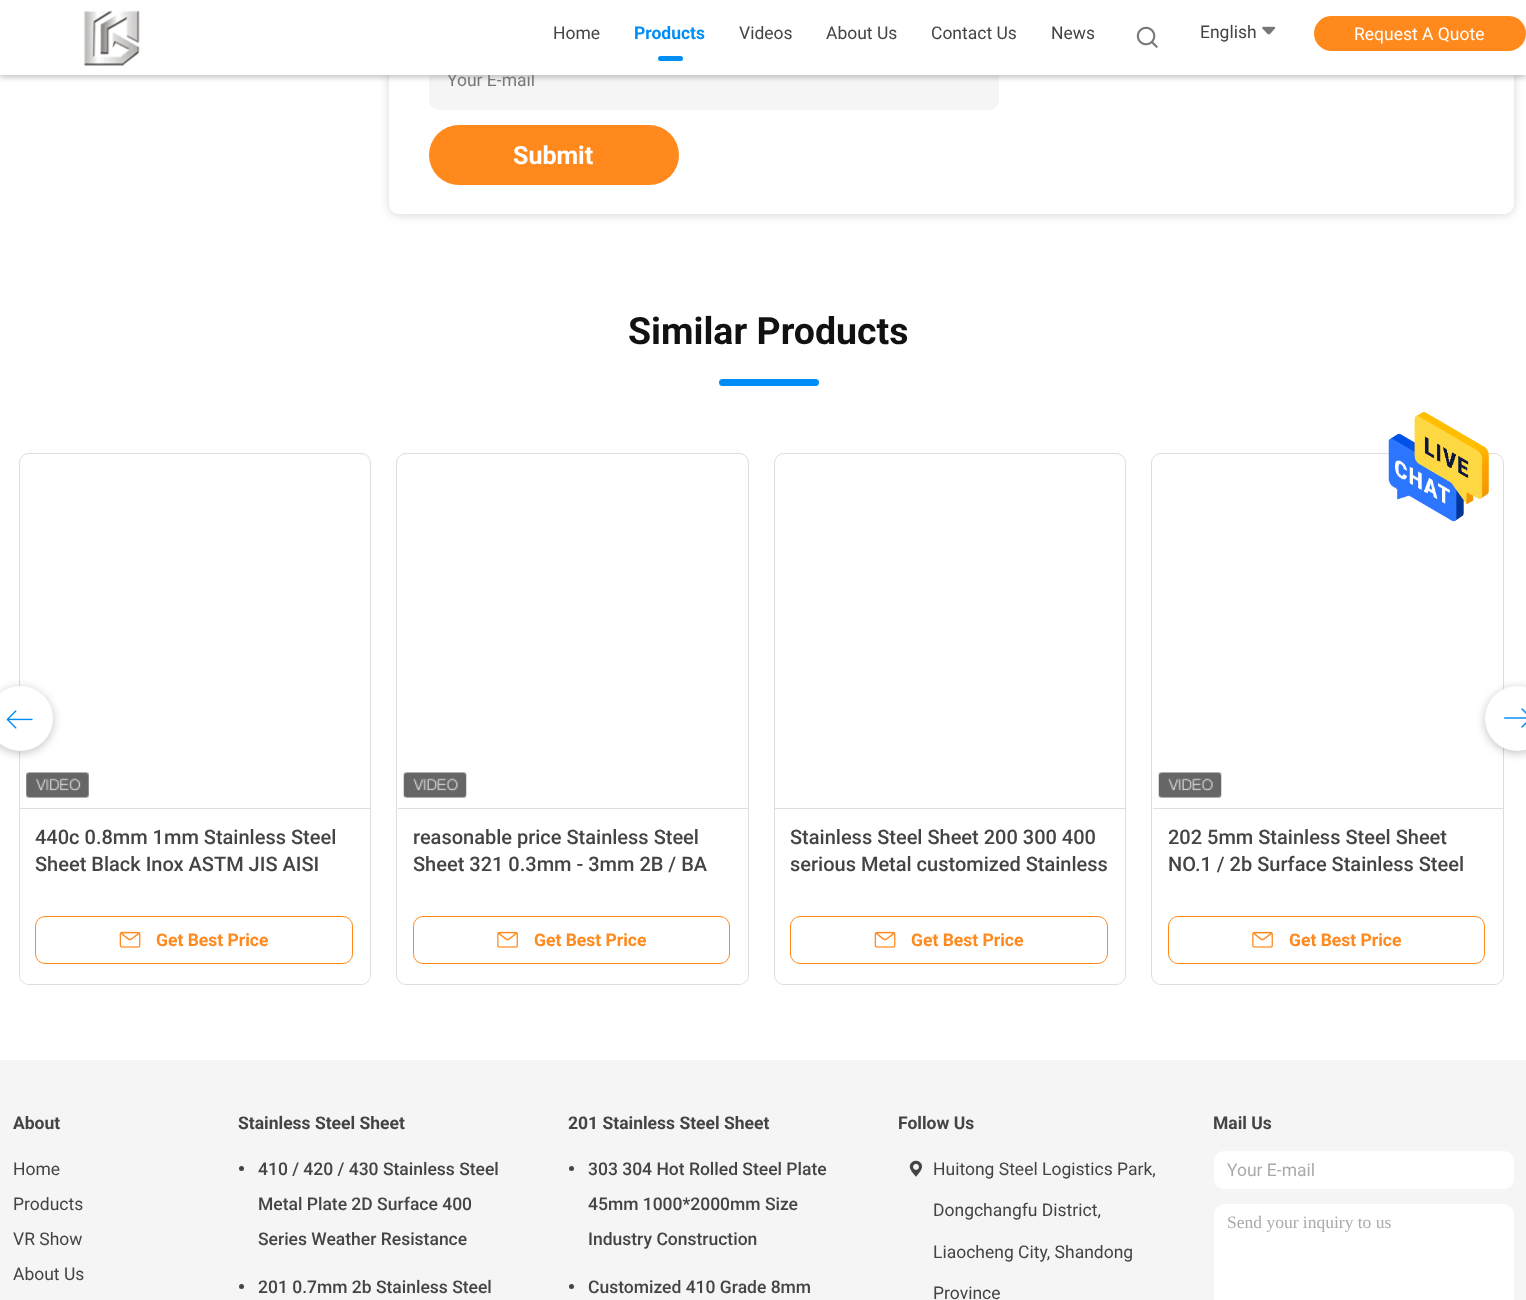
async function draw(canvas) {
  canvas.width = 1526;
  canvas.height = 1300;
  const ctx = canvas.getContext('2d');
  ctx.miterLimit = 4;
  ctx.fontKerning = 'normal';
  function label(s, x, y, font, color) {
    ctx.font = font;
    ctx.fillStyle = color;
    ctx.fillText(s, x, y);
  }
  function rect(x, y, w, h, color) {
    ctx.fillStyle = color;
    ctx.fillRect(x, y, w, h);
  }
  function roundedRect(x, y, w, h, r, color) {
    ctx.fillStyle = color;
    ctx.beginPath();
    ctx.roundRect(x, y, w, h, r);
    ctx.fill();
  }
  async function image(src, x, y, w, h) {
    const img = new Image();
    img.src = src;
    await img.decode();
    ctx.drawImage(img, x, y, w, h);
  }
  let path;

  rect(0, 0, 1526, 1300, '#fff');
  ctx.save();
  path = new Path2D('M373 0H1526V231H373ZM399-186H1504C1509.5-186 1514-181.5 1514-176V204C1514 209.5 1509.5 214 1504 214H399C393.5 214 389 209.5 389 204V-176C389-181.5 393.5-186 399-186Z');
  ctx.clip(path, 'evenodd');
  ctx.fillStyle = '#00000029';
  ctx.filter = 'blur(5px)';
  ctx.beginPath();
  ctx.roundRect(389, -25, 1125, 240, 10);
  ctx.fill();
  ctx.filter = 'none';
  ctx.restore();
  roundedRect(429, 50, 570, 60, 10, '#f5f5f5');
  ctx.fillStyle = '#00000033';
  ctx.filter = 'blur(2.5px)';
  ctx.beginPath();
  ctx.rect(0, 3, 1526, 75);
  ctx.fill();
  ctx.filter = 'none';
  label('Your E-mail', 447, 86, '17.5px Roboto', '#777');
  rect(0, 0, 1526, 75, '#fff');
  await image('assets/img1.png', 84, 10, 56, 56);
  label('Home', 553, 39, '17.5px Roboto', '#444');
  label('Products', 634, 39, 'bold 17.5px Roboto', '#008ef6');
  roundedRect(658, 56, 25, 5, 2.5, '#008ef6');
  label('Videos', 739, 39, '17.5px Roboto', '#444');
  label('About Us', 826, 39, '17.5px Roboto', '#444');
  label('Contact Us', 931, 39, '17.5px Roboto', '#444');
  label('News', 1051, 39, '17.5px Roboto', '#444');
  await image('assets/img2.png', 1136, 26, 22, 22);
  label('English', 1200, 38, '17.5px Roboto', '#444');
  await image('assets/img3.png', 1262, 26, 14, 9);
  roundedRect(1314, 16, 212, 35, 17.5, '#ff891c');
  label('Request A Quote', 1354, 40, '17.5px Roboto', '#fff');
  roundedRect(429, 125, 250, 60, 30, '#ff891c');
  label('Submit', 513, 164, 'bold 25px Roboto', '#fff');
  label('Similar Products', 628, 344, 'bold 37.5px Roboto', '#111');
  roundedRect(719, 379, 100, 7, 3.5, '#008ef6');
  ctx.beginPath();
  ctx.roundRect(19.5, 453.5, 351, 531, 9.5);
  ctx.strokeStyle = '#ddd';
  ctx.stroke();
  ctx.fillStyle = '#0000003d';
  ctx.filter = 'blur(5px)';
  ctx.beginPath();
  ctx.roundRect(-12, 688, 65, 65, 32.5);
  ctx.fill();
  ctx.filter = 'none';
  ctx.fillStyle = '#fff';
  ctx.beginPath();
  ctx.arc(20.5, 718.5, 32.5, 0, 2 * Math.PI);
  ctx.fill();
  await image('assets/img4.png', 6, 710, 27, 19);
  ctx.beginPath();
  ctx.roundRect(1151.5, 453.5, 352, 531, 9.5);
  ctx.stroke();
  ctx.fillStyle = '#0000003d';
  ctx.filter = 'blur(5px)';
  ctx.beginPath();
  ctx.roundRect(1485, 688, 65, 65, 32.5);
  ctx.fill();
  ctx.filter = 'none';
  ctx.fillStyle = '#fff';
  ctx.beginPath();
  ctx.arc(1517.5, 718.5, 32.5, 0, 2 * Math.PI);
  ctx.fill();
  await image('assets/img5.png', 1504, 708, 22, 20);
  await image('assets/img6.png', 26, 772, 63, 26);
  ctx.beginPath();
  ctx.roundRect(20, 808, 350, 176, [0, 0, 9, 9]);
  ctx.fill();
  rect(20, 808, 350, 1, '#ddd');
  label('440c 0.8mm 1mm Stainless Steel', 35, 844, '500 20px Roboto', '#444');
  label('Sheet Black Inox ASTM JIS AISI', 35, 871, '500 20px Roboto', '#444');
  ctx.beginPath();
  ctx.roundRect(35.5, 916.5, 317, 47, 9.5);
  ctx.strokeStyle = '#ff891c';
  ctx.stroke();
  await image('assets/img7.png', 119, 931, 22, 17);
  label('Get Best Price', 156, 946, 'bold 17.5px Roboto', '#ff891c');
  ctx.beginPath();
  ctx.roundRect(396.5, 453.5, 352, 531, 9.5);
  ctx.strokeStyle = '#ddd';
  ctx.stroke();
  await image('assets/img8.png', 403, 772, 64, 26);
  ctx.fillStyle = '#fff';
  ctx.beginPath();
  ctx.roundRect(398, 808, 350, 176, [0, 0, 9, 9]);
  ctx.fill();
  rect(398, 808, 350, 1, '#ddd');
  label('reasonable price Stainless Steel', 413, 844, '500 20px Roboto', '#444');
  label('Sheet 321 0.3mm - 3mm 2B / BA', 413, 871, '500 20px Roboto', '#444');
  ctx.beginPath();
  ctx.roundRect(413.5, 916.5, 316, 47, 9.5);
  ctx.strokeStyle = '#ff891c';
  ctx.stroke();
  await image('assets/img9.png', 497, 931, 21, 17);
  label('Get Best Price', 534, 946, 'bold 17.5px Roboto', '#ff891c');
  ctx.beginPath();
  ctx.roundRect(774.5, 453.5, 351, 531, 9.5);
  ctx.strokeStyle = '#ddd';
  ctx.stroke();
  ctx.fillStyle = '#fff';
  ctx.beginPath();
  ctx.roundRect(775, 808, 350, 176, [0, 0, 9, 9]);
  ctx.fill();
  rect(775, 808, 350, 1, '#ddd');
  label('Stainless Steel Sheet 200 300 400', 790, 844, '500 20px Roboto', '#444');
  label('serious Metal customized Stainless', 790, 871, '500 20px Roboto', '#444');
  ctx.beginPath();
  ctx.roundRect(790.5, 916.5, 317, 47, 9.5);
  ctx.strokeStyle = '#ff891c';
  ctx.stroke();
  await image('assets/img7.png', 874, 931, 22, 17);
  label('Get Best Price', 911, 946, 'bold 17.5px Roboto', '#ff891c');
  await image('assets/img8.png', 1158, 772, 64, 26);
  ctx.fillStyle = '#fff';
  ctx.beginPath();
  ctx.roundRect(1153, 808, 350, 176, [0, 0, 9, 9]);
  ctx.fill();
  rect(1153, 808, 350, 1, '#ddd');
  label('202 5mm Stainless Steel Sheet', 1168, 844, '500 20px Roboto', '#444');
  label('NO.1 / 2b Surface Stainless Steel', 1168, 871, '500 20px Roboto', '#444');
  ctx.beginPath();
  ctx.roundRect(1168.5, 916.5, 316, 47, 9.5);
  ctx.stroke();
  await image('assets/img9.png', 1252, 931, 21, 17);
  label('Get Best Price', 1289, 946, 'bold 17.5px Roboto', '#ff891c');
  await image('assets/img10.png', 1388, 412, 101, 110);
  rect(0, 1060, 1526, 240, '#f5f5f5');
  label('About', 13, 1129, 'bold 17.5px Roboto', '#444');
  label('Home', 13, 1175, '17.5px Roboto', '#444');
  label('Products', 13, 1210, '17.5px Roboto', '#444');
  label('VR Show', 13, 1245, '17.5px Roboto', '#444');
  label('About Us', 13, 1280, '17.5px Roboto', '#444');
  label('Stainless Steel Sheet', 238, 1129, 'bold 17.5px Roboto', '#444');
  ctx.beginPath();
  ctx.arc(241.5, 1168.5, 2.5, 0, 2 * Math.PI);
  ctx.fill();
  label('410 / 420 / 430 Stainless Steel', 258, 1175, '500 17.5px Roboto', '#444');
  label('Metal Plate 2D Surface 400', 258, 1210, '500 17.5px Roboto', '#444');
  label('Series Weather Resistance', 258, 1245, '500 17.5px Roboto', '#444');
  ctx.beginPath();
  ctx.arc(241.5, 1286.5, 2.5, 0, 2 * Math.PI);
  ctx.fill();
  label('201 0.7mm 2b Stainless Steel', 258, 1293, '500 17.5px Roboto', '#444');
  label('201 Stainless Steel Sheet', 568, 1129, 'bold 17.5px Roboto', '#444');
  ctx.beginPath();
  ctx.arc(571.5, 1168.5, 2.5, 0, 2 * Math.PI);
  ctx.fill();
  label('303 304 Hot Rolled Steel Plate', 588, 1175, '500 17.5px Roboto', '#444');
  label('45mm 1000*2000mm Size', 588, 1210, '500 17.5px Roboto', '#444');
  label('Industry Construction', 588, 1245, '500 17.5px Roboto', '#444');
  ctx.beginPath();
  ctx.arc(571.5, 1286.5, 2.5, 0, 2 * Math.PI);
  ctx.fill();
  label('Customized 410 Grade 8mm', 588, 1293, '500 17.5px Roboto', '#444');
  label('Follow Us', 898, 1129, 'bold 17.5px Roboto', '#444');
  await image('assets/img11.png', 909, 1160, 14, 17);
  label('Huitong Steel Logistics Park,', 933, 1175, '17.5px Roboto', '#444');
  label('Dongchangfu District,', 933, 1216, '17.5px Roboto', '#444');
  label('Liaocheng City, Shandong', 933, 1258, '17.5px Roboto', '#444');
  label('Province', 933, 1299, '17.5px Roboto', '#444');
  label('Mail Us', 1213, 1129, 'bold 17.5px Roboto', '#444');
  roundedRect(1214, 1151, 300, 38, 10, '#fff');
  label('Your E-mail', 1227, 1176, '17.5px Roboto', '#aaa');
  roundedRect(1214, 1204, 300, 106, 10, '#fff');
  label('Send your inquiry to us', 1227, 1228, '17.5px Liberation Serif', '#aaa');
}

draw(document.querySelector('canvas'));
